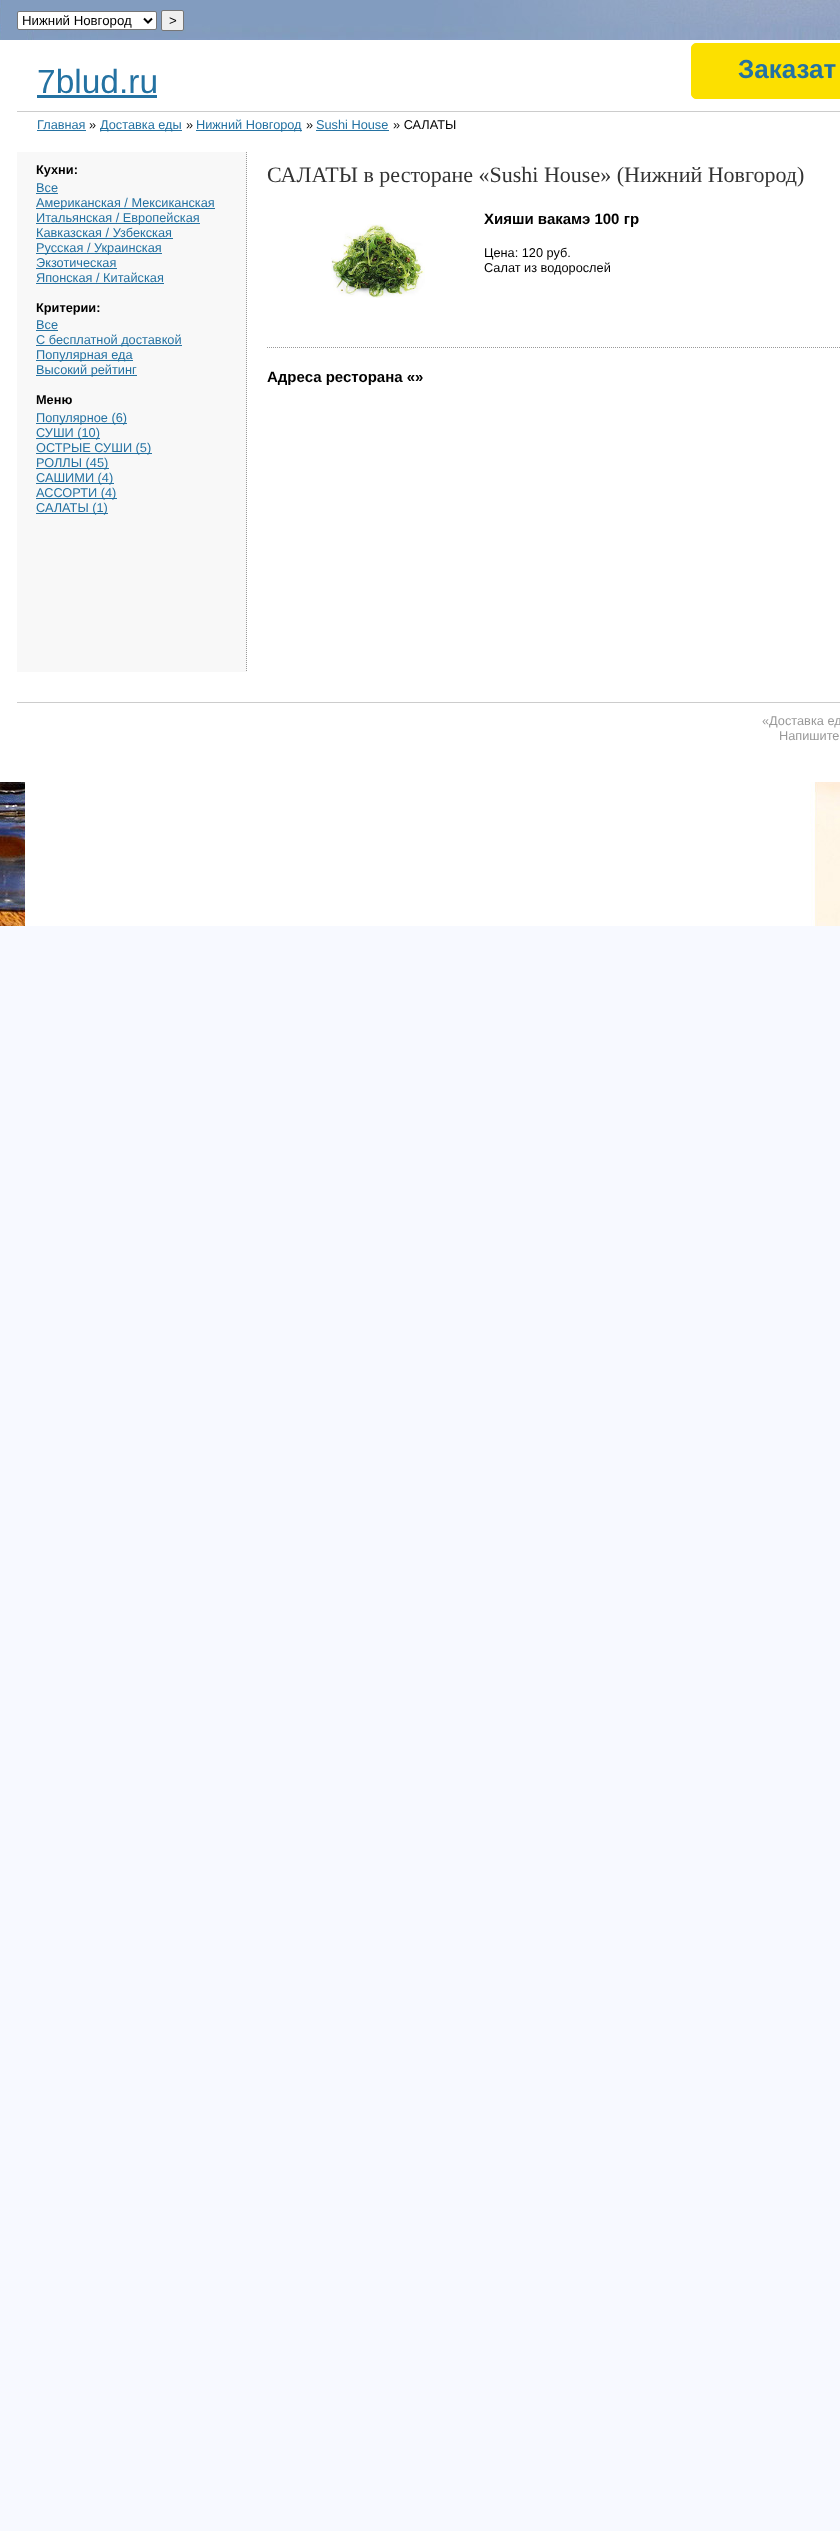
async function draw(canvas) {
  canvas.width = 840;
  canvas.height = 2531;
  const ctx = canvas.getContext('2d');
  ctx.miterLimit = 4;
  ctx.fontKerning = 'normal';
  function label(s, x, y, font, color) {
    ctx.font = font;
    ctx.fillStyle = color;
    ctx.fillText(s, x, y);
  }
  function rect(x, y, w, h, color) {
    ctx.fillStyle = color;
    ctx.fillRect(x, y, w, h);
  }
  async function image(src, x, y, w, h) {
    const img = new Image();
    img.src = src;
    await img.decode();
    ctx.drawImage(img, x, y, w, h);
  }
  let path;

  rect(0, 0, 840, 2531, '#f7f9ff');
  await image('assets/img1.png', 0, 0, 840, 926);
  rect(0, 40, 840, 742, '#fff');
  rect(17, 111, 823, 1, '#ccc');
  ctx.fillStyle = '#fff';
  ctx.beginPath();
  ctx.roundRect(17.5, 11.5, 139, 18, 1.5);
  ctx.fill();
  ctx.strokeStyle = '#767676';
  ctx.stroke();
  path = new Path2D('M144 18.5L148 22.5L152 18.5');
  ctx.strokeStyle = '#000';
  ctx.lineWidth = 2;
  ctx.stroke(path);
  label('Нижний Новгород', 22, 25, '13.25px Liberation Sans', '#000');
  ctx.fillStyle = '#efefef';
  ctx.beginPath();
  ctx.roundRect(161.5, 10.5, 22, 20, 1.5);
  ctx.fill();
  ctx.strokeStyle = '#767676';
  ctx.lineWidth = 1;
  ctx.stroke();
  label('>', 169, 25, '13.25px Liberation Sans', '#000');
  label('7blud.ru', 37, 93, '33.5px Liberation Sans', '#2472a2');
  rect(37, 95, 120, 3, '#2472a2');
  ctx.fillStyle = '#fce000';
  ctx.beginPath();
  ctx.roundRect(691.5, 43.5, 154, 55, 4.5);
  ctx.fill();
  ctx.strokeStyle = '#fce000';
  ctx.stroke();
  label('Заказат', 738, 78, 'bold 26px Liberation Sans', '#2472a2');
  label('Главная', 37, 129, '12.75px Liberation Sans', '#2472a2');
  rect(37, 130, 49, 1, '#2472a2');
  label('»', 89, 129, '12.75px Liberation Sans', '#000');
  rect(100, 130, 82, 1, '#2472a2');
  label('Доставка еды', 100, 129, '12.75px Liberation Sans', '#2472a2');
  label('»', 186, 129, '12.75px Liberation Sans', '#000');
  rect(196, 130, 106, 1, '#2472a2');
  label('Нижний Новгород', 196, 129, '12.75px Liberation Sans', '#2472a2');
  label('»', 306, 129, '12.75px Liberation Sans', '#000');
  label('Sushi House', 316, 129, '12.75px Liberation Sans', '#2472a2');
  rect(316, 130, 73, 1, '#2472a2');
  label('» САЛАТЫ', 393, 129, '12.75px Liberation Sans', '#000');
  rect(17, 152, 230, 520, '#f8f8f8');
  path = new Path2D('M246.5 152V672');
  ctx.strokeStyle = '#999';
  ctx.setLineDash([1, 1]);
  ctx.stroke(path);
  label('Кухни:', 36, 174, 'bold 12.75px Liberation Sans', '#000');
  label('Все', 36, 192, '12.75px Liberation Sans', '#2472a2');
  rect(36, 193, 22, 1, '#2472a2');
  rect(36, 208, 179, 1, '#2472a2');
  label('Американская / Мексиканская', 36, 207, '12.75px Liberation Sans', '#2472a2');
  rect(36, 223, 164, 1, '#2472a2');
  label('Итальянская / Европейская', 36, 222, '12.75px Liberation Sans', '#2472a2');
  label('Кавказская / Узбекская', 36, 237, '12.75px Liberation Sans', '#2472a2');
  rect(36, 238, 137, 1, '#2472a2');
  rect(36, 253, 126, 1, '#2472a2');
  label('Русская / Украинская', 36, 252, '12.75px Liberation Sans', '#2472a2');
  label('Экзотическая', 36, 267, '12.75px Liberation Sans', '#2472a2');
  rect(36, 268, 81, 1, '#2472a2');
  label('Японская / Китайская', 36, 282, '12.75px Liberation Sans', '#2472a2');
  rect(36, 283, 128, 1, '#2472a2');
  label('Критерии:', 36, 312, 'bold 12.75px Liberation Sans', '#000');
  label('Все', 36, 329, '12.75px Liberation Sans', '#2472a2');
  rect(36, 330, 22, 1, '#2472a2');
  rect(36, 345, 146, 1, '#2472a2');
  label('С бесплатной доставкой', 36, 344, '12.75px Liberation Sans', '#2472a2');
  rect(36, 360, 97, 1, '#2472a2');
  label('Популярная еда', 36, 359, '12.75px Liberation Sans', '#2472a2');
  rect(36, 375, 101, 1, '#2472a2');
  label('Высокий рейтинг', 36, 374, '12.75px Liberation Sans', '#2472a2');
  label('Меню', 36, 404, 'bold 12.75px Liberation Sans', '#000');
  rect(36, 423, 91, 1, '#2472a2');
  label('Популярное (6)', 36, 422, '12.75px Liberation Sans', '#2472a2');
  rect(36, 438, 64, 1, '#2472a2');
  label('СУШИ (10)', 36, 437, '12.75px Liberation Sans', '#2472a2');
  rect(36, 453, 116, 1, '#2472a2');
  label('ОСТРЫЕ СУШИ (5)', 36, 452, '12.75px Liberation Sans', '#2472a2');
  rect(36, 468, 73, 1, '#2472a2');
  label('РОЛЛЫ (45)', 36, 467, '12.75px Liberation Sans', '#2472a2');
  rect(36, 483, 78, 1, '#2472a2');
  label('САШИМИ (4)', 36, 482, '12.75px Liberation Sans', '#2472a2');
  rect(36, 498, 81, 1, '#2472a2');
  label('АССОРТИ (4)', 36, 497, '12.75px Liberation Sans', '#2472a2');
  rect(36, 513, 72, 1, '#2472a2');
  label('САЛАТЫ (1)', 36, 512, '12.75px Liberation Sans', '#2472a2');
  label('САЛАТЫ в ресторане «Sushi House» (Нижний Новгород)', 267, 182, '22px Liberation Serif', '#333');
  path = new Path2D('M267 347.5H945');
  ctx.stroke(path);
  await image('assets/img2.png', 331, 224, 94, 74);
  label('Хияши вакамэ 100 гр', 484, 224, 'bold 15px Liberation Sans', '#000');
  label('Цена: 120 руб.', 484, 257, '12.75px Liberation Sans', '#000');
  label('Салат из водорослей', 484, 272, '12.75px Liberation Sans', '#000');
  label('Адреса ресторана «»', 267, 382, 'bold 15px Liberation Sans', '#000');
  rect(17, 702, 823, 1, '#ccc');
  label('«Доставка ед', 762, 725, '12.75px Liberation Sans', '#999');
  label('Напишите', 779, 740, '12.75px Liberation Sans', '#999');
}

draw(document.querySelector('canvas'));
